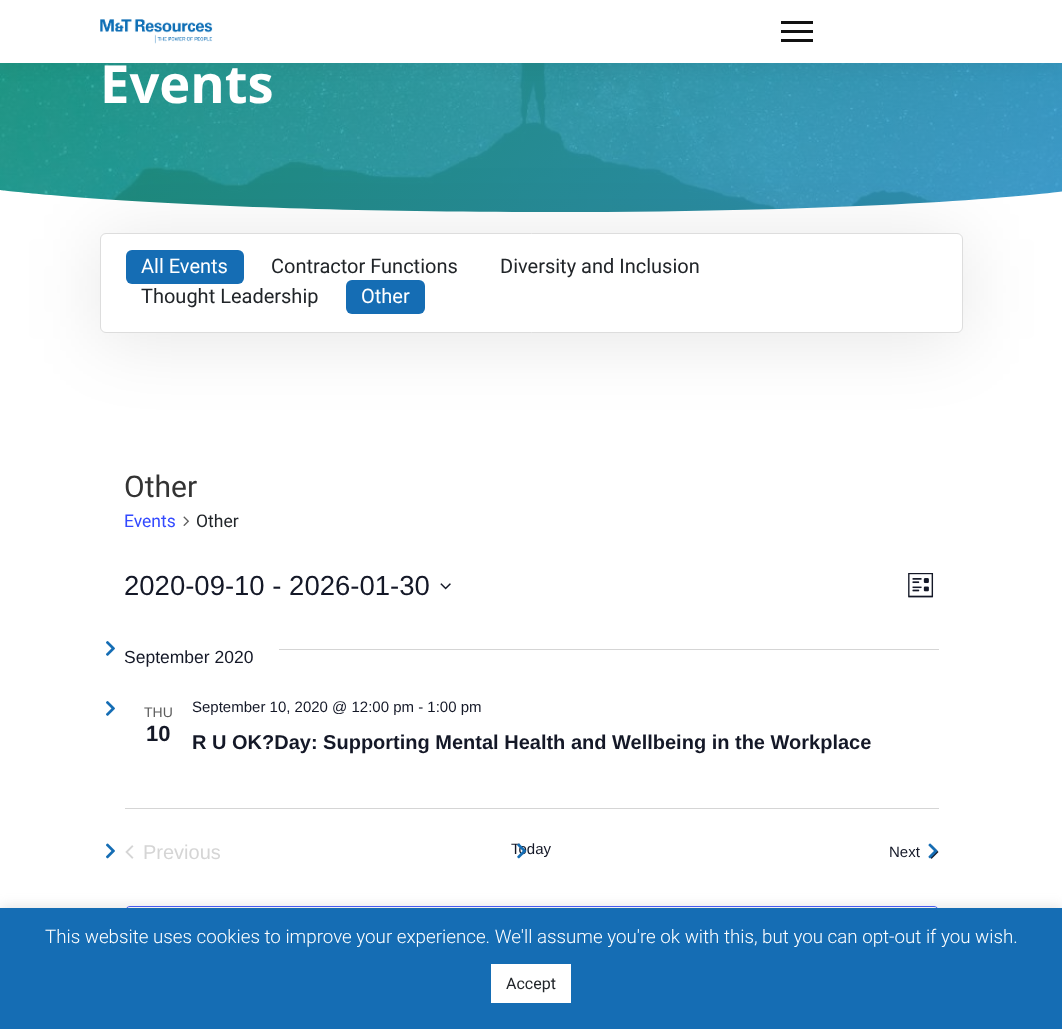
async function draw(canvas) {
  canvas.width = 1062;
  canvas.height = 1029;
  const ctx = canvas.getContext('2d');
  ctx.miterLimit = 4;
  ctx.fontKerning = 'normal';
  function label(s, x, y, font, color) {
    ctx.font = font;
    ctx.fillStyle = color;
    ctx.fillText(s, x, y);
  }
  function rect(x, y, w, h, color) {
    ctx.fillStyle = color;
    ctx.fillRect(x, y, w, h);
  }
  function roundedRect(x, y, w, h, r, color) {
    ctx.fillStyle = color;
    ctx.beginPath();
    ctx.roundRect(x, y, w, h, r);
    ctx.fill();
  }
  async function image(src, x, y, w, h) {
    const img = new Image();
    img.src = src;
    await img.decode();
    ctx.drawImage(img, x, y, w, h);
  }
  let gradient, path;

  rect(0, 0, 1062, 1029, '#fff');
  await image('assets/img2.png', 0, 63, 1062, 149);
  gradient = ctx.createLinearGradient(859, 423, 203, -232);
  gradient.addColorStop(0, '#3dafe2cc');
  gradient.addColorStop(1, '#1dab84cc');
  ctx.fillStyle = gradient;
  ctx.fillRect(0, 63, 1062, 149);
  ctx.fillStyle = '#0000000d';
  ctx.filter = 'blur(9.5px)';
  ctx.beginPath();
  ctx.rect(0, 3, 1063, 62);
  ctx.fill();
  ctx.filter = 'none';
  rect(0, 0, 1062, 63, '#fff');
  await image('assets/img1.png', 100, 19, 113, 25);
  rect(781, 21, 32, 3, '#111');
  rect(781, 30, 32, 3, '#111');
  rect(781, 39, 32, 3, '#111');
  label('Events', 100, 103, 'bold 52.5px Open Sans', '#fff');
  path = new Path2D('M548 212C170 212 0 190 0 190V221H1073V190C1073 190 926 212 548 212Z');
  ctx.fill(path);
  ctx.fillStyle = '#0000001a';
  ctx.filter = 'blur(37.5px)';
  ctx.beginPath();
  ctx.roundRect(100, 239, 863, 100, 6);
  ctx.fill();
  ctx.filter = 'none';
  ctx.fillStyle = '#fff';
  ctx.beginPath();
  ctx.roundRect(100.5, 233.5, 862, 99, 5.5);
  ctx.fill();
  ctx.strokeStyle = '#ddd';
  ctx.stroke();
  roundedRect(126, 250, 118, 34, 6, '#156db4');
  label('All Events', 141, 273, '20px Roboto', '#fff');
  label('Contractor Functions', 271, 273, '20px Roboto', '#212529');
  label('Diversity and Inclusion', 500, 273, '20px Roboto', '#212529');
  label('Thought Leadership', 141, 303, '20px Roboto', '#212529');
  roundedRect(346, 280, 79, 34, 6, '#156db4');
  label('Other', 361, 303, '20px Roboto', '#fff');
  label('Other', 124, 497, '30px Roboto', '#333');
  label('Events', 124, 527, '17.5px Roboto', '#334aff');
  await image('assets/img3.png', 183, 516, 7, 10);
  label('Other', 196, 527, '17.5px Roboto', '#212529');
  label('2020-09-10 - 2026-01-30', 124, 595, '27.5px Liberation Sans', '#141827');
  await image('assets/img4.png', 440, 583, 11, 7);
  await image('assets/img5.png', 908, 573, 26, 25);
  await image('assets/img6.png', 106, 641, 9, 15);
  rect(279, 649, 660, 1, '#d5d5d5');
  label('September 2020', 124, 663, '17.5px Liberation Sans', '#141827');
  await image('assets/img6.png', 106, 701, 9, 15);
  label('THU', 144, 717, '14px Liberation Sans', '#5d5d5d');
  label('10', 146, 741, 'bold 22px Liberation Sans', '#141827');
  label('September 10, 2020 @ 12:00 pm - 1:00 pm', 192, 712, '15px Liberation Sans', '#141827');
  label('R U OK?Day: Supporting Mental Health and Wellbeing in the Workplace', 192, 749, 'bold 20px Liberation Sans', '#141827');
  rect(125, 808, 814, 1, '#d5d5d5');
  await image('assets/img7.png', 106, 843, 9, 16);
  await image('assets/img8.png', 125, 845, 9, 14);
  label('Previous', 143, 859, '20px Liberation Sans', '#d5d5d5');
  label('Today', 511, 854, '15px Liberation Sans', '#141827');
  await image('assets/img9.png', 517, 843, 10, 16);
  label('Next', 889, 857, '15px Liberation Sans', '#141827');
  await image('assets/img10.png', 930, 845, 9, 14);
  await image('assets/img11.png', 928, 843, 10, 16);
  ctx.beginPath();
  ctx.roundRect(125.5, 906.5, 813, 58, 4.5);
  ctx.strokeStyle = '#334aff';
  ctx.stroke();
  ctx.fillStyle = '#acabab4d';
  ctx.filter = 'blur(6px)';
  ctx.beginPath();
  ctx.rect(0, 906, 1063, 123);
  ctx.fill();
  ctx.filter = 'none';
  rect(0, 908, 1062, 121, '#156db4');
  label('This website uses cookies to improve your experience. We\'ll assume you\'re ok with this, but you can opt-out if you wish.', 45, 943, '300 18.75px Roboto', '#fff');
  rect(491, 964, 80, 39, '#fff');
  label('Accept', 506, 989, '16px Roboto', '#212529');
}

draw(document.querySelector('canvas'));
